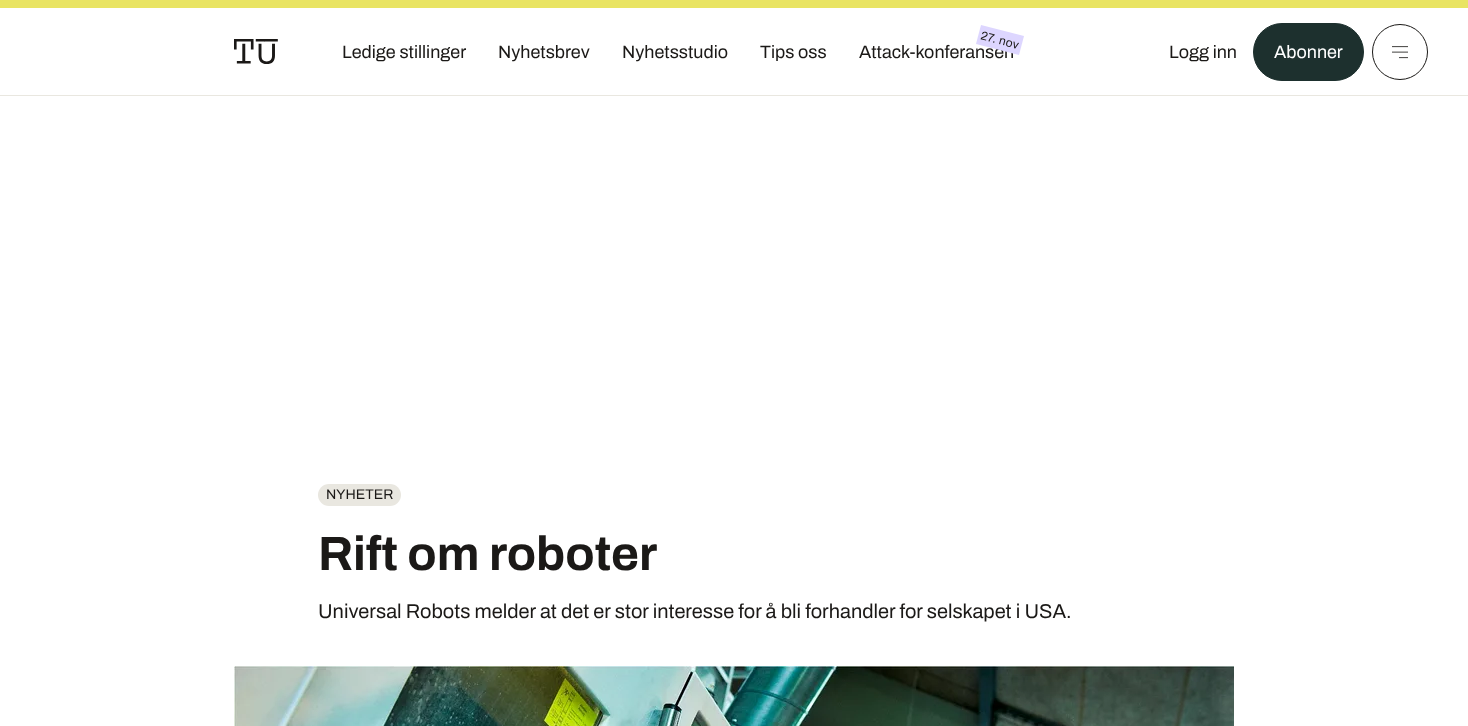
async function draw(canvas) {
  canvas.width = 1468;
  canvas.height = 726;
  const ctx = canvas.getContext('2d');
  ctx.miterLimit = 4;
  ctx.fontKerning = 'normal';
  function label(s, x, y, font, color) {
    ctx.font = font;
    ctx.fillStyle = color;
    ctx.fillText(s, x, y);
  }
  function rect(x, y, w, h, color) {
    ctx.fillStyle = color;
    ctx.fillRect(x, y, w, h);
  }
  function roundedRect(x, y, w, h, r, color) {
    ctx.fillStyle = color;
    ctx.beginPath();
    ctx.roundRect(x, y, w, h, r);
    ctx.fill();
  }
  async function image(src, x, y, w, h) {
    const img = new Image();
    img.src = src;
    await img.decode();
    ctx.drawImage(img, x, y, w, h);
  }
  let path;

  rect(0, 0, 1468, 726, '#fff');
  rect(0, 0, 1468, 8, '#e9e463');
  rect(0, 95, 1468, 1, '#e9e7e0');
  await image('assets/img1.png', 234, 39, 44, 25);
  label('Ledige stillinger', 342, 58, '18px Archivo', '#1b1917');
  label('Nyhetsbrev', 498, 58, '18px Archivo', '#1b1917');
  label('Nyhetsstudio', 622, 58, '18px Archivo', '#1b1917');
  label('Tips oss', 760, 58, '18px Archivo', '#1b1917');
  label('Attack-konferansen', 859, 58, '18px Archivo', '#1b1917');
  ctx.fillStyle = '#ddd6ff';
  path = new Path2D('M981 25L1024 36L1019 55L976 44Z');
  ctx.fill(path);
  ctx.letterSpacing = '0.25px';
  ctx.font = '12px Archivo';
  ctx.fillStyle = '#1b1917';
  ctx.save();
  ctx.translate(980, 39);
  ctx.rotate(15 * Math.PI / 180);
  ctx.fillText('27. nov', 0, 0);
  ctx.restore();
  ctx.letterSpacing = '0px';
  label('Logg inn', 1169, 58, '18px Archivo', '#1b1917');
  ctx.fillStyle = '#1d302e';
  ctx.beginPath();
  ctx.roundRect(1253.5, 23.5, 110, 57, 28.5);
  ctx.fill();
  ctx.strokeStyle = '#1d302e';
  ctx.stroke();
  label('Abonner', 1274, 58, '18px Archivo', '#fff');
  ctx.beginPath();
  ctx.arc(1400, 52, 27.5, 0, 2 * Math.PI);
  ctx.strokeStyle = '#1b1917';
  ctx.stroke();
  await image('assets/img2.png', 1392, 46, 16, 13);
  roundedRect(318, 484, 83, 22, 11, '#e9e7e0');
  label('NYHETER', 326, 499, '14px Archivo', '#1b1917');
  label('Rift om roboter', 318, 570, 'bold 48px Archivo', '#1b1917');
  label('Universal Robots melder at det er stor interesse for å bli forhandler for selskapet i USA.', 318, 618, '20px Archivo', '#1b1917');
  await image('assets/img3.png', 234, 666, 1000, 60);
}

draw(document.querySelector('canvas'));
